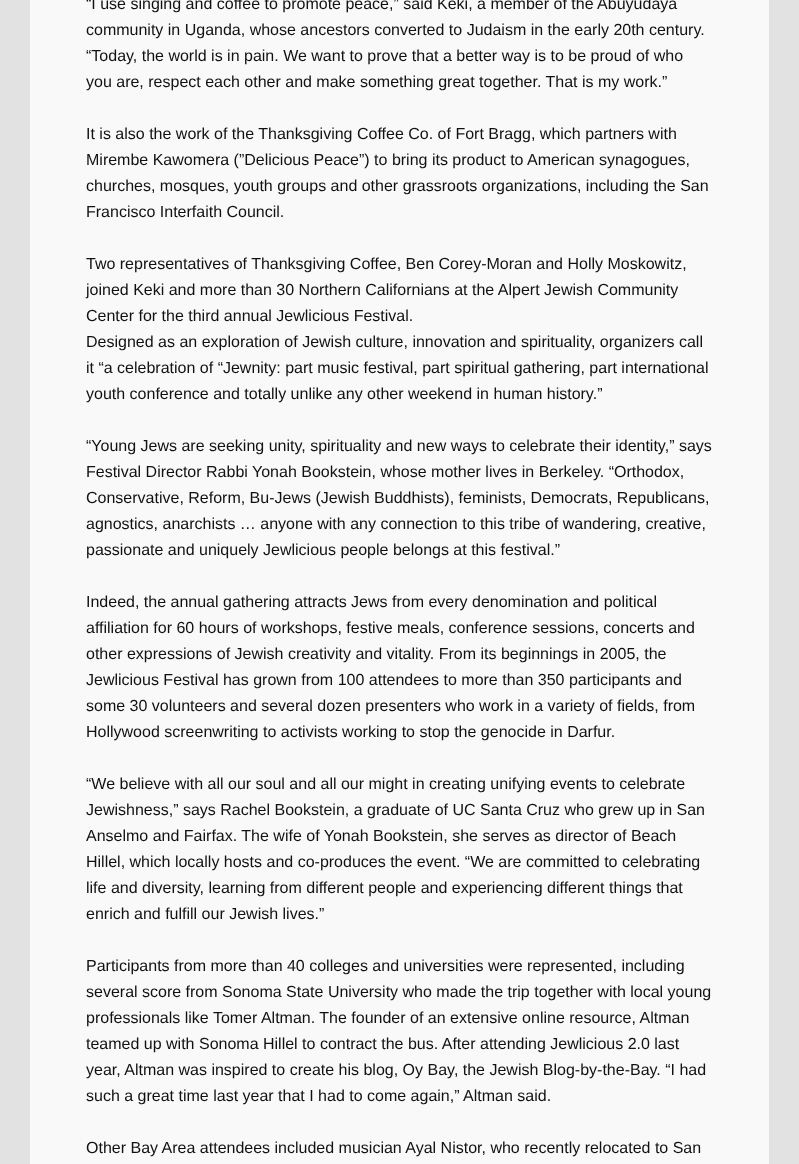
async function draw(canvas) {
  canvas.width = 799;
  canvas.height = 1164;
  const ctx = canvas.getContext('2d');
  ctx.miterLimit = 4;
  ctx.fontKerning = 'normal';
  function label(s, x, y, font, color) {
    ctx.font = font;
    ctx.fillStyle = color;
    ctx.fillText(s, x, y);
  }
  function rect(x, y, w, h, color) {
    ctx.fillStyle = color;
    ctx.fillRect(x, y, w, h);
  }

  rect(0, 0, 799, 1164, '#e2e2e2');
  rect(30, 0, 739, 1164, '#f9f9f9');
  label('“I use singing and coffee to promote peace,” said Keki, a member of the Abuyudaya', 86, 9, '16px Liberation Sans', '#111');
  label('community in Uganda, whose ancestors converted to Judaism in the early 20th century.', 86, 35, '16px Liberation Sans', '#111');
  label('“Today, the world is in pain. We want to prove that a better way is to be proud of who', 86, 61, '16px Liberation Sans', '#111');
  label('you are, respect each other and make something great together. That is my work.”', 86, 87, '16px Liberation Sans', '#111');
  label('It is also the work of the Thanksgiving Coffee Co. of Fort Bragg, which partners with', 86, 139, '16px Liberation Sans', '#111');
  label('Mirembe Kawomera (”Delicious Peace”) to bring its product to American synagogues,', 86, 165, '16px Liberation Sans', '#111');
  label('churches, mosques, youth groups and other grassroots organizations, including the San', 86, 191, '16px Liberation Sans', '#111');
  label('Francisco Interfaith Council.', 86, 217, '16px Liberation Sans', '#111');
  label('Two representatives of Thanksgiving Coffee, Ben Corey-Moran and Holly Moskowitz,', 86, 269, '16px Liberation Sans', '#111');
  label('joined Keki and more than 30 Northern Californians at the Alpert Jewish Community', 86, 295, '16px Liberation Sans', '#111');
  label('Center for the third annual Jewlicious Festival.', 86, 321, '16px Liberation Sans', '#111');
  label('Designed as an exploration of Jewish culture, innovation and spirituality, organizers call', 86, 347, '16px Liberation Sans', '#111');
  label('it “a celebration of “Jewnity: part music festival, part spiritual gathering, part international', 86, 373, '16px Liberation Sans', '#111');
  label('youth conference and totally unlike any other weekend in human history.”', 86, 399, '16px Liberation Sans', '#111');
  label('“Young Jews are seeking unity, spirituality and new ways to celebrate their identity,” says', 86, 451, '16px Liberation Sans', '#111');
  label('Festival Director Rabbi Yonah Bookstein, whose mother lives in Berkeley. “Orthodox,', 86, 477, '16px Liberation Sans', '#111');
  label('Conservative, Reform, Bu-Jews (Jewish Buddhists), feminists, Democrats, Republicans,', 86, 503, '16px Liberation Sans', '#111');
  label('agnostics, anarchists … anyone with any connection to this tribe of wandering, creative,', 86, 529, '16px Liberation Sans', '#111');
  label('passionate and uniquely Jewlicious people belongs at this festival.”', 86, 555, '16px Liberation Sans', '#111');
  label('Indeed, the annual gathering attracts Jews from every denomination and political', 86, 607, '16px Liberation Sans', '#111');
  label('affiliation for 60 hours of workshops, festive meals, conference sessions, concerts and', 86, 633, '16px Liberation Sans', '#111');
  label('other expressions of Jewish creativity and vitality. From its beginnings in 2005, the', 86, 659, '16px Liberation Sans', '#111');
  label('Jewlicious Festival has grown from 100 attendees to more than 350 participants and', 86, 685, '16px Liberation Sans', '#111');
  label('some 30 volunteers and several dozen presenters who work in a variety of fields, from', 86, 711, '16px Liberation Sans', '#111');
  label('Hollywood screenwriting to activists working to stop the genocide in Darfur.', 86, 737, '16px Liberation Sans', '#111');
  label('“We believe with all our soul and all our might in creating unifying events to celebrate', 86, 789, '16px Liberation Sans', '#111');
  label('Jewishness,” says Rachel Bookstein, a graduate of UC Santa Cruz who grew up in San', 86, 815, '16px Liberation Sans', '#111');
  label('Anselmo and Fairfax. The wife of Yonah Bookstein, she serves as director of Beach', 86, 841, '16px Liberation Sans', '#111');
  label('Hillel, which locally hosts and co-produces the event. “We are committed to celebrating', 86, 867, '16px Liberation Sans', '#111');
  label('life and diversity, learning from different people and experiencing different things that', 86, 893, '16px Liberation Sans', '#111');
  label('enrich and fulfill our Jewish lives.”', 86, 919, '16px Liberation Sans', '#111');
  label('Participants from more than 40 colleges and universities were represented, including', 86, 971, '16px Liberation Sans', '#111');
  label('several score from Sonoma State University who made the trip together with local young', 86, 997, '16px Liberation Sans', '#111');
  label('professionals like Tomer Altman. The founder of an extensive online resource, Altman', 86, 1023, '16px Liberation Sans', '#111');
  label('teamed up with Sonoma Hillel to contract the bus. After attending Jewlicious 2.0 last', 86, 1049, '16px Liberation Sans', '#111');
  label('year, Altman was inspired to create his blog, Oy Bay, the Jewish Blog-by-the-Bay. “I had', 86, 1075, '16px Liberation Sans', '#111');
  label('such a great time last year that I had to come again,” Altman said.', 86, 1101, '16px Liberation Sans', '#111');
  label('Other Bay Area attendees included musician Ayal Nistor, who recently relocated to San', 86, 1153, '16px Liberation Sans', '#111');
}

draw(document.querySelector('canvas'));
